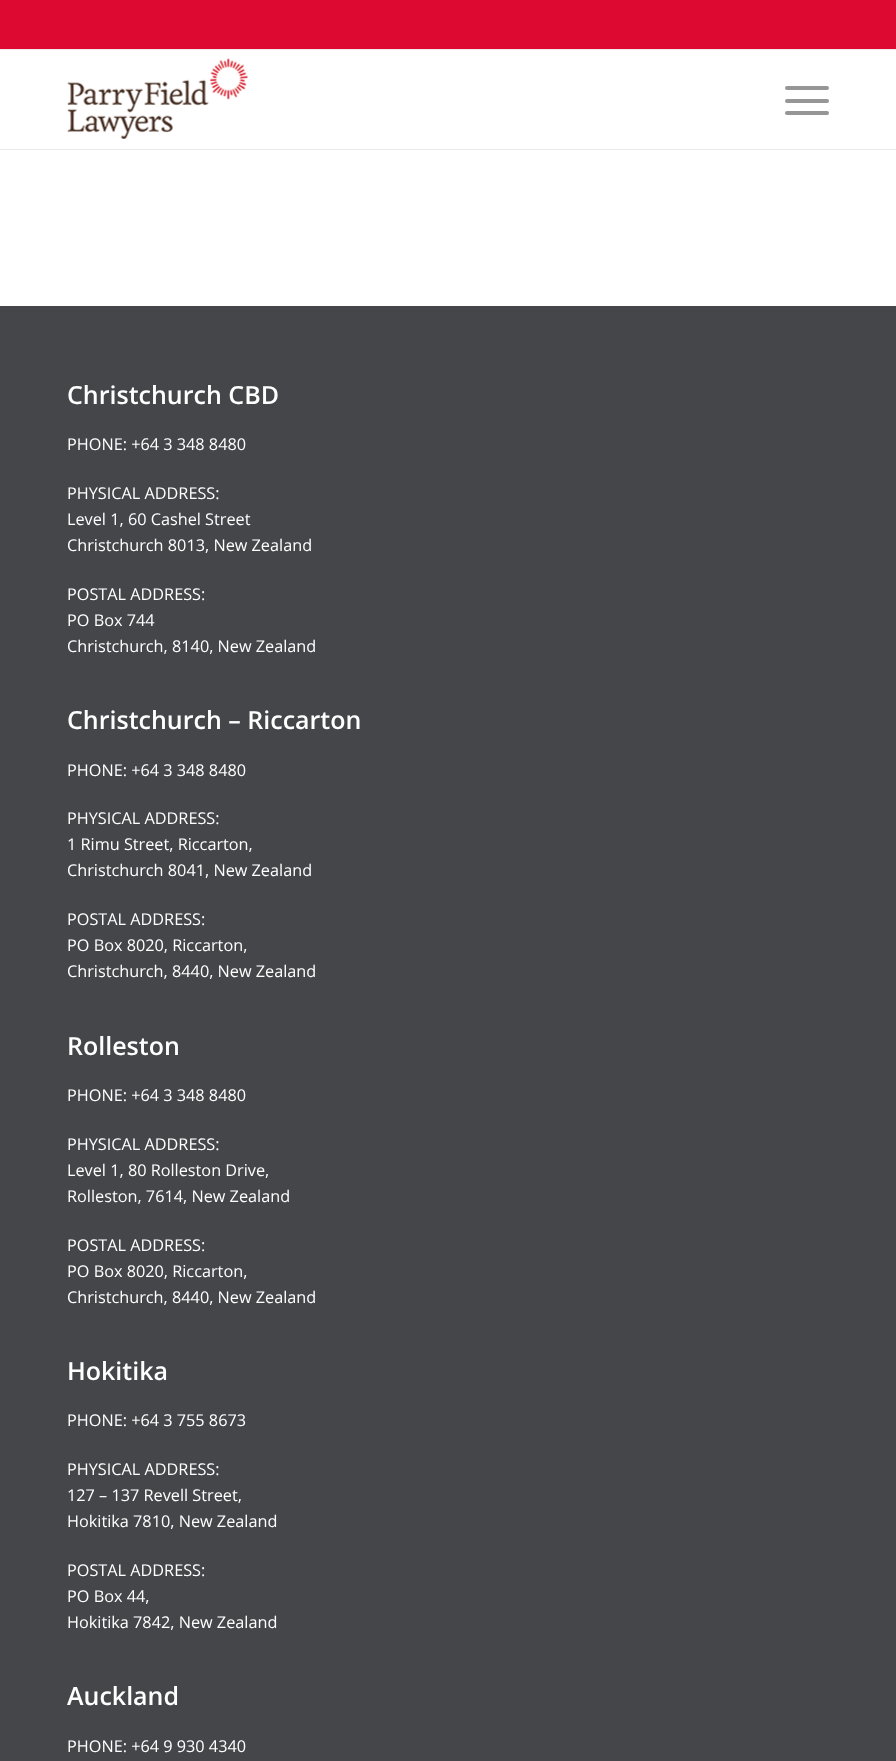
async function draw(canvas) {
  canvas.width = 896;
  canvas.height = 1761;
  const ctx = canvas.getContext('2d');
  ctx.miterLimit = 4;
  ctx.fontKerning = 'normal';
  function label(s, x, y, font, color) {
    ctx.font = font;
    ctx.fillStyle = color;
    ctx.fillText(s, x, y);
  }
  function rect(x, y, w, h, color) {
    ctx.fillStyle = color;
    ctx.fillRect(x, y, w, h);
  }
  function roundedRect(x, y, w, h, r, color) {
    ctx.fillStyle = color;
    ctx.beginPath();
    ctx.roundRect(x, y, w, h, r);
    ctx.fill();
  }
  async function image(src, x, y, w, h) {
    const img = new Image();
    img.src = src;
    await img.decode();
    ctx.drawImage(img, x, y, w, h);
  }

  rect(0, 0, 896, 1761, '#fff');
  rect(0, 0, 896, 49, '#dd0930');
  rect(0, 49, 896, 1, '#ebebeb');
  rect(0, 149, 896, 1, '#ebebeb');
  await image('assets/img1.png', 67, 58, 181, 81);
  roundedRect(785, 99, 44, 4, 2, '#969696');
  roundedRect(785, 86, 44, 4, 2, '#969696');
  roundedRect(785, 111, 44, 4, 2, '#969696');
  rect(0, 306, 896, 1455, '#44464a');
  label('Christchurch CBD', 67, 404, '600 25px Open Sans', '#fff');
  label('PHONE: +64 3 348 8480', 67, 450, '16.25px Open Sans', '#fff');
  label('PHYSICAL ADDRESS:', 67, 499, '16.25px Open Sans', '#fff');
  label('Level 1, 60 Cashel Street', 67, 525, '16.25px Open Sans', '#fff');
  label('Christchurch 8013, New Zealand', 67, 551, '16.25px Open Sans', '#fff');
  label('POSTAL ADDRESS:', 67, 600, '16.25px Open Sans', '#fff');
  label('PO Box 744', 67, 626, '16.25px Open Sans', '#fff');
  label('Christchurch, 8140, New Zealand', 67, 652, '16.25px Open Sans', '#fff');
  label('Christchurch – Riccarton', 67, 729, '600 25px Open Sans', '#fff');
  label('PHONE: +64 3 348 8480', 67, 776, '16.25px Open Sans', '#fff');
  label('PHYSICAL ADDRESS:', 67, 824, '16.25px Open Sans', '#fff');
  label('1 Rimu Street, Riccarton,', 67, 850, '16.25px Open Sans', '#fff');
  label('Christchurch 8041, New Zealand', 67, 876, '16.25px Open Sans', '#fff');
  label('POSTAL ADDRESS:', 67, 925, '16.25px Open Sans', '#fff');
  label('PO Box 8020, Riccarton,', 67, 951, '16.25px Open Sans', '#fff');
  label('Christchurch, 8440, New Zealand', 67, 977, '16.25px Open Sans', '#fff');
  label('Rolleston', 67, 1055, '600 25px Open Sans', '#fff');
  label('PHONE: +64 3 348 8480', 67, 1101, '16.25px Open Sans', '#fff');
  label('PHYSICAL ADDRESS:', 67, 1150, '16.25px Open Sans', '#fff');
  label('Level 1, 80 Rolleston Drive,', 67, 1176, '16.25px Open Sans', '#fff');
  label('Rolleston, 7614, New Zealand', 67, 1202, '16.25px Open Sans', '#fff');
  label('POSTAL ADDRESS:', 67, 1251, '16.25px Open Sans', '#fff');
  label('PO Box 8020, Riccarton,', 67, 1277, '16.25px Open Sans', '#fff');
  label('Christchurch, 8440, New Zealand', 67, 1303, '16.25px Open Sans', '#fff');
  label('Hokitika', 67, 1380, '600 25px Open Sans', '#fff');
  label('PHONE: +64 3 755 8673', 67, 1426, '16.25px Open Sans', '#fff');
  label('PHYSICAL ADDRESS:', 67, 1475, '16.25px Open Sans', '#fff');
  label('127 – 137 Revell Street,', 67, 1501, '16.25px Open Sans', '#fff');
  label('Hokitika 7810, New Zealand', 67, 1527, '16.25px Open Sans', '#fff');
  label('POSTAL ADDRESS:', 67, 1576, '16.25px Open Sans', '#fff');
  label('PO Box 44,', 67, 1602, '16.25px Open Sans', '#fff');
  label('Hokitika 7842, New Zealand', 67, 1628, '16.25px Open Sans', '#fff');
  label('Auckland', 67, 1705, '600 25px Open Sans', '#fff');
  label('PHONE: +64 9 930 4340', 67, 1752, '16.25px Open Sans', '#fff');
}

draw(document.querySelector('canvas'));
